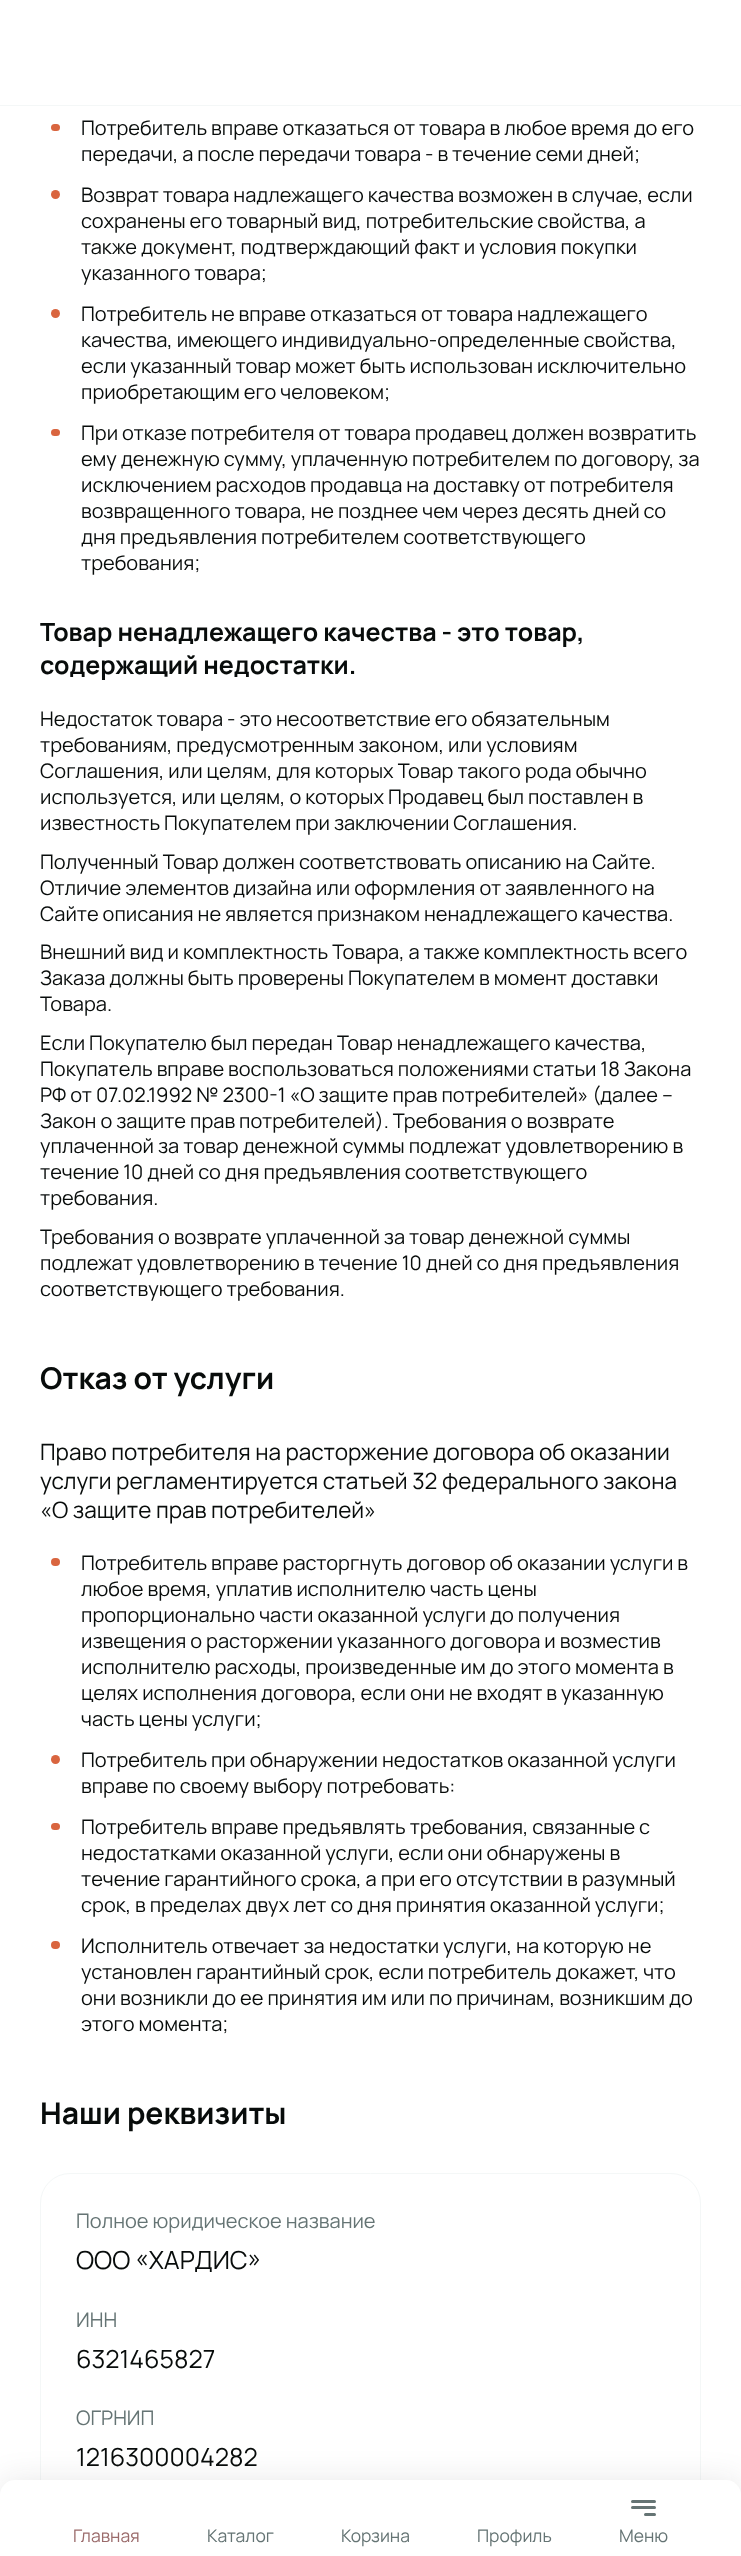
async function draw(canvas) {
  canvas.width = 741;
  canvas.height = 2556;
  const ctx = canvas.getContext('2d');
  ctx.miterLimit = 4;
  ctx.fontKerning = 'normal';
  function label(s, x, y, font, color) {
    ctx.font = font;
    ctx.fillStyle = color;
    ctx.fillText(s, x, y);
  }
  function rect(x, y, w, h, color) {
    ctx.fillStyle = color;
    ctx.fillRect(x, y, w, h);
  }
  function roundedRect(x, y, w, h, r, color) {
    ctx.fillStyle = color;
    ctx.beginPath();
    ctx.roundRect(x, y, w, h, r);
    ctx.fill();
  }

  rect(0, 0, 741, 2556, '#fff');
  rect(0, 105, 741, 1, '#f4f7f7');
  roundedRect(51, 124, 9, 7, 3.5, '#d9653f');
  label('Потребитель вправе отказаться от товара в любое время до его', 81, 135, '20px Manrope', '#080c0b');
  label('передачи, а после передачи товара - в течение семи дней;', 81, 161, '20px Manrope', '#080c0b');
  ctx.fillStyle = '#d9653f';
  ctx.beginPath();
  ctx.arc(55.5, 194.5, 4.5, 0, 2 * Math.PI);
  ctx.fill();
  label('Возврат товара надлежащего качества возможен в случае, если', 81, 202, '20px Manrope', '#080c0b');
  label('сохранены его товарный вид, потребительские свойства, а', 81, 228, '20px Manrope', '#080c0b');
  label('также документ, подтверждающий факт и условия покупки', 81, 254, '20px Manrope', '#080c0b');
  label('указанного товара;', 81, 280, '20px Manrope', '#080c0b');
  ctx.fillStyle = '#d9653f';
  ctx.beginPath();
  ctx.arc(55.5, 313.5, 4.5, 0, 2 * Math.PI);
  ctx.fill();
  label('Потребитель не вправе отказаться от товара надлежащего', 81, 321, '20px Manrope', '#080c0b');
  label('качества, имеющего индивидуально-определенные свойства,', 81, 347, '20px Manrope', '#080c0b');
  label('если указанный товар может быть использован исключительно', 81, 373, '20px Manrope', '#080c0b');
  label('приобретающим его человеком;', 81, 399, '20px Manrope', '#080c0b');
  roundedRect(51, 429, 9, 7, 3.5, '#d9653f');
  label('При отказе потребителя от товара продавец должен возвратить', 81, 440, '20px Manrope', '#080c0b');
  label('ему денежную сумму, уплаченную потребителем по договору, за', 81, 466, '20px Manrope', '#080c0b');
  label('исключением расходов продавца на доставку от потребителя', 81, 492, '20px Manrope', '#080c0b');
  label('возвращенного товара, не позднее чем через десять дней со', 81, 518, '20px Manrope', '#080c0b');
  label('дня предъявления потребителем соответствующего', 81, 544, '20px Manrope', '#080c0b');
  label('требования;', 81, 570, '20px Manrope', '#080c0b');
  label('Товар ненадлежащего качества - это товар,', 40, 641, 'bold 25px Manrope', '#080c0b');
  label('содержащий недостатки.', 40, 674, 'bold 25px Manrope', '#080c0b');
  label('Недостаток товара - это несоответствие его обязательным', 40, 726, '20px Manrope', '#080c0b');
  label('требованиям, предусмотренным законом, или условиям', 40, 752, '20px Manrope', '#080c0b');
  label('Соглашения, или целям, для которых Товар такого рода обычно', 40, 778, '20px Manrope', '#080c0b');
  label('используется, или целям, о которых Продавец был поставлен в', 40, 804, '20px Manrope', '#080c0b');
  label('известность Покупателем при заключении Соглашения.', 40, 830, '20px Manrope', '#080c0b');
  label('Полученный Товар должен соответствовать описанию на Сайте.', 40, 869, '20px Manrope', '#080c0b');
  label('Отличие элементов дизайна или оформления от заявленного на', 40, 895, '20px Manrope', '#080c0b');
  label('Сайте описания не является признаком ненадлежащего качества.', 40, 921, '20px Manrope', '#080c0b');
  label('Внешний вид и комплектность Товара, а также комплектность всего', 40, 959, '20px Manrope', '#080c0b');
  label('Заказа должны быть проверены Покупателем в момент доставки', 40, 985, '20px Manrope', '#080c0b');
  label('Товара.', 40, 1011, '20px Manrope', '#080c0b');
  label('Если Покупателю был передан Товар ненадлежащего качества,', 40, 1050, '20px Manrope', '#080c0b');
  label('Покупатель вправе воспользоваться положениями статьи 18 Закона', 40, 1076, '20px Manrope', '#080c0b');
  label('РФ от 07.02.1992 № 2300-1 «О защите прав потребителей» (далее –', 40, 1102, '20px Manrope', '#080c0b');
  label('Закон о защите прав потребителей). Требования о возврате', 40, 1128, '20px Manrope', '#080c0b');
  label('уплаченной за товар денежной суммы подлежат удовлетворению в', 40, 1153, '20px Manrope', '#080c0b');
  label('течение 10 дней со дня предъявления соответствующего', 40, 1179, '20px Manrope', '#080c0b');
  label('требования.', 40, 1205, '20px Manrope', '#080c0b');
  label('Требования о возврате уплаченной за товар денежной суммы', 40, 1244, '20px Manrope', '#080c0b');
  label('подлежат удовлетворению в течение 10 дней со дня предъявления', 40, 1270, '20px Manrope', '#080c0b');
  label('соответствующего требования.', 40, 1296, '20px Manrope', '#080c0b');
  label('Отказ от услуги', 40, 1389, 'bold 30px Manrope', '#080c0b');
  label('Право потребителя на расторжение договора об оказании', 40, 1460, '22.5px Manrope', '#080c0b');
  label('услуги регламентируется статьей 32 федерального закона', 40, 1489, '22.5px Manrope', '#080c0b');
  label('«О защите прав потребителей»', 40, 1518, '22.5px Manrope', '#080c0b');
  roundedRect(51, 1558, 9, 8, 4, '#d9653f');
  label('Потребитель вправе расторгнуть договор об оказании услуги в', 81, 1570, '20px Manrope', '#080c0b');
  label('любое время, уплатив исполнителю часть цены', 81, 1596, '20px Manrope', '#080c0b');
  label('пропорционально части оказанной услуги до получения', 81, 1622, '20px Manrope', '#080c0b');
  label('извещения о расторжении указанного договора и возместив', 81, 1648, '20px Manrope', '#080c0b');
  label('исполнителю расходы, произведенные им до этого момента в', 81, 1674, '20px Manrope', '#080c0b');
  label('целях исполнения договора, если они не входят в указанную', 81, 1700, '20px Manrope', '#080c0b');
  label('часть цены услуги;', 81, 1726, '20px Manrope', '#080c0b');
  ctx.fillStyle = '#d9653f';
  ctx.beginPath();
  ctx.arc(55.5, 1759.5, 4.5, 0, 2 * Math.PI);
  ctx.fill();
  label('Потребитель при обнаружении недостатков оказанной услуги', 81, 1767, '20px Manrope', '#080c0b');
  label('вправе по своему выбору потребовать:', 81, 1793, '20px Manrope', '#080c0b');
  roundedRect(51, 1823, 9, 7, 3.5, '#d9653f');
  label('Потребитель вправе предъявлять требования, связанные с', 81, 1834, '20px Manrope', '#080c0b');
  label('недостатками оказанной услуги, если они обнаружены в', 81, 1860, '20px Manrope', '#080c0b');
  label('течение гарантийного срока, а при его отсутствии в разумный', 81, 1886, '20px Manrope', '#080c0b');
  label('срок, в пределах двух лет со дня принятия оказанной услуги;', 81, 1912, '20px Manrope', '#080c0b');
  roundedRect(51, 1941, 9, 8, 4, '#d9653f');
  label('Исполнитель отвечает за недостатки услуги, на которую не', 81, 1953, '20px Manrope', '#080c0b');
  label('установлен гарантийный срок, если потребитель докажет, что', 81, 1979, '20px Manrope', '#080c0b');
  label('они возникли до ее принятия им или по причинам, возникшим до', 81, 2005, '20px Manrope', '#080c0b');
  label('этого момента;', 81, 2031, '20px Manrope', '#080c0b');
  label('Наши реквизиты', 40, 2124, 'bold 30px Manrope', '#080c0b');
  ctx.beginPath();
  ctx.roundRect(40.5, 2173.5, 660, 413, 29.5);
  ctx.strokeStyle = '#f4f7f7';
  ctx.stroke();
  label('Полное юридическое название', 76, 2228, '20px Manrope', '#657474');
  label('ООО «ХАРДИС»', 76, 2269, '25px Manrope', '#080c0b');
  label('ИНН', 76, 2327, '20px Manrope', '#657474');
  label('6321465827', 76, 2368, '25px Manrope', '#080c0b');
  label('ОГРНИП', 76, 2425, '20px Manrope', '#657474');
  label('1216300004282', 76, 2466, '25px Manrope', '#080c0b');
  ctx.fillStyle = '#1017171a';
  ctx.filter = 'blur(15px)';
  ctx.beginPath();
  ctx.roundRect(0, 2480, 741, 76, 15);
  ctx.fill();
  ctx.filter = 'none';
  ctx.fillStyle = '#fff';
  ctx.beginPath();
  ctx.roundRect(0, 2480, 741, 76, [15, 15, 0, 0]);
  ctx.fill();
  label('Главная', 73, 2542, '17.5px Manrope', '#9b6b6b');
  label('Каталог', 207, 2542, '17.5px Manrope', '#657474');
  label('Корзина', 341, 2542, '17.5px Manrope', '#657474');
  label('Профиль', 477, 2542, '17.5px Manrope', '#657474');
  roundedRect(631, 2500, 25, 3, 1.5, '#657474');
  roundedRect(631, 2506, 25, 3, 1.5, '#657474');
  roundedRect(644, 2513, 12, 3, 1.5, '#657474');
  label('Меню', 619, 2542, '17.5px Manrope', '#657474');
}

draw(document.querySelector('canvas'));
